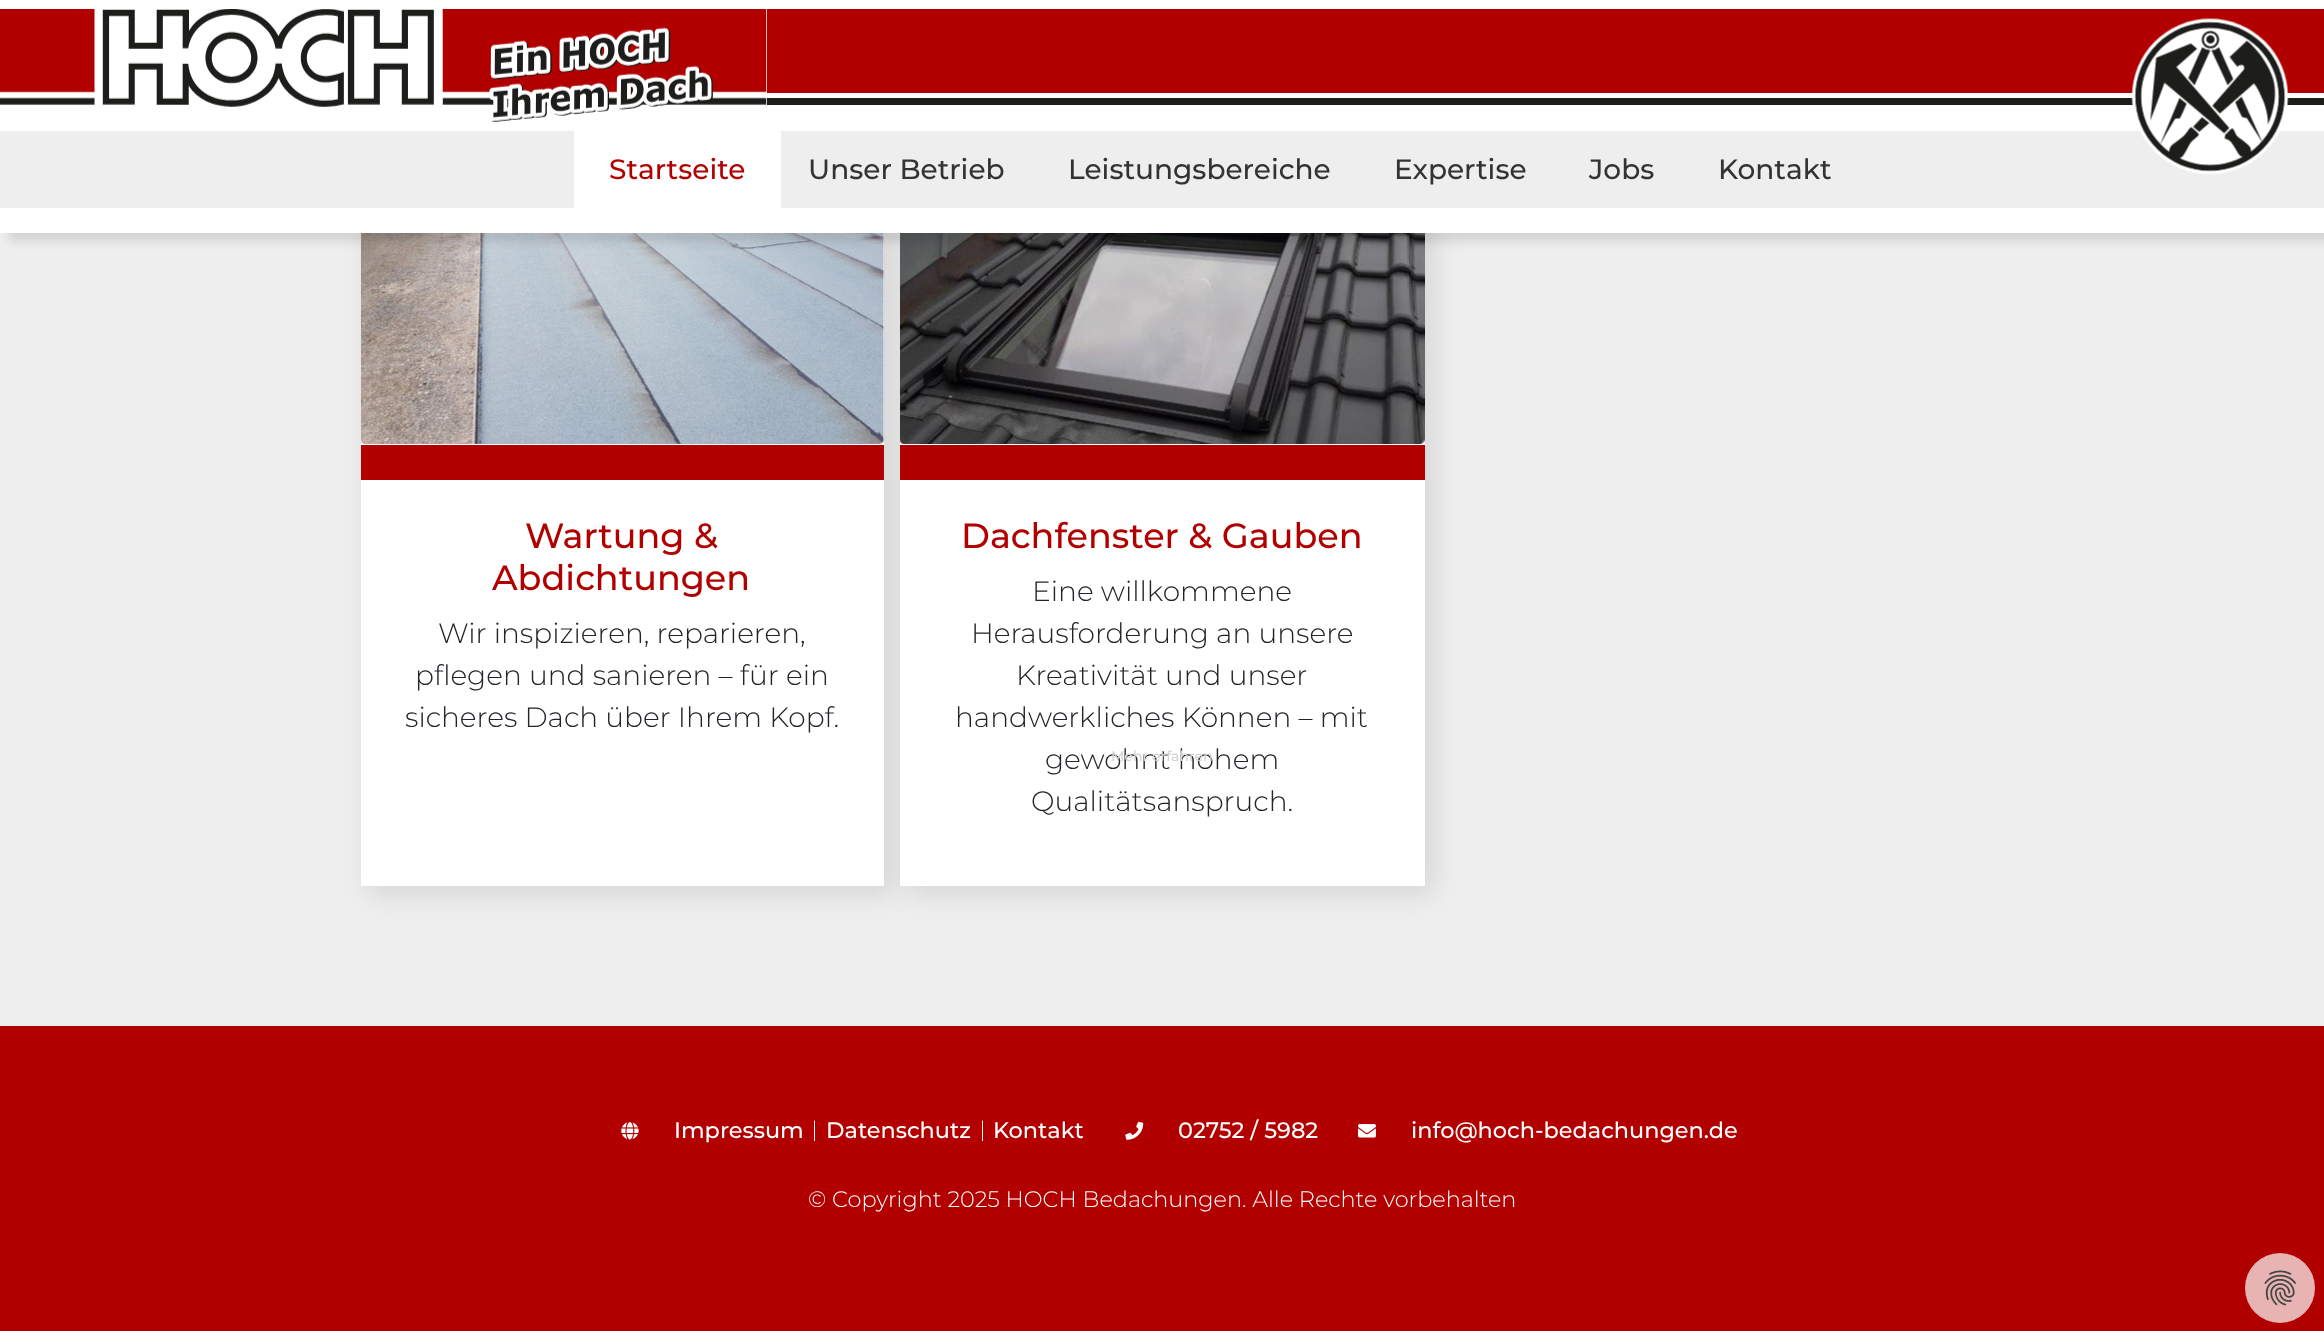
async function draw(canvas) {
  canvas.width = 2324;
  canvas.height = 1331;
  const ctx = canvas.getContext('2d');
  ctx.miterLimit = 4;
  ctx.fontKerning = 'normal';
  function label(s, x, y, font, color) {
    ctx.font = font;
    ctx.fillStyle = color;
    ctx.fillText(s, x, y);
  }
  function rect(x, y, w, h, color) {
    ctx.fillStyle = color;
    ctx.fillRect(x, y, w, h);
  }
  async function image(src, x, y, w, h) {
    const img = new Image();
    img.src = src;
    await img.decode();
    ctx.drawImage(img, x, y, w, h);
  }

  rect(0, 0, 2324, 1331, '#eee');
  ctx.fillStyle = '#0000001a';
  ctx.filter = 'blur(13px)';
  ctx.beginPath();
  ctx.rect(369, 61, 524, 833);
  ctx.fill();
  ctx.filter = 'none';
  rect(361, 233, 523, 653, '#fff');
  await image('assets/img3.png', 361, 233, 524, 211);
  rect(361, 445, 523, 35, '#b20000');
  ctx.fillStyle = '#0000001a';
  ctx.filter = 'blur(13px)';
  ctx.beginPath();
  ctx.rect(908, 61, 525, 833);
  ctx.fill();
  ctx.filter = 'none';
  rect(900, 439, 525, 447, '#fff');
  await image('assets/img4.png', 900, 233, 525, 211);
  ctx.fillStyle = '#0000001a';
  ctx.filter = 'blur(4.5px)';
  ctx.beginPath();
  ctx.rect(9, 9, 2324, 233);
  ctx.fill();
  ctx.filter = 'none';
  rect(0, 0, 2324, 233, '#fff');
  await image('assets/img1.png', 0, 9, 767, 113);
  rect(767, 9, 1557, 84, '#b20000');
  rect(767, 98, 1557, 7, '#1d1d1b');
  rect(0, 131, 2324, 77, '#eee');
  await image('assets/img2.png', 2131, 18, 158, 157);
  rect(574, 131, 207, 77, '#fff');
  label('Startseite', 609, 179, '500 28px Montserrat', '#b20000');
  label('Unser Betrieb', 808, 179, '500 28px Montserrat', '#333');
  label('Leistungsbereiche', 1068, 179, '500 28px Montserrat', '#333');
  label('Expertise', 1394, 179, '500 28px Montserrat', '#333');
  label('Jobs', 1589, 179, '500 28px Montserrat', '#333');
  label('Kontakt', 1718, 179, '500 28px Montserrat', '#333');
  label('Wartung &', 525, 548, '500 35px Montserrat', '#b20000');
  label('Abdichtungen', 492, 590, '500 35px Montserrat', '#b20000');
  label('Wir inspizieren, reparieren,', 438, 643, '300 28px Montserrat', '#212529');
  label('pflegen und sanieren – für ein', 415, 685, '300 28px Montserrat', '#212529');
  label('sicheres Dach über Ihrem Kopf.', 405, 727, '300 28px Montserrat', '#212529');
  rect(900, 445, 525, 35, '#b20000');
  label('Dachfenster & Gauben', 961, 548, '500 35px Montserrat', '#b20000');
  label('Eine willkommene', 1032, 601, '300 28px Montserrat', '#212529');
  label('Herausforderung an unsere', 971, 643, '300 28px Montserrat', '#212529');
  label('Kreativität und unser', 1016, 685, '300 28px Montserrat', '#212529');
  label('handwerkliches Können – mit', 955, 727, '300 28px Montserrat', '#212529');
  label('gewohnt hohem', 1045, 769, '300 28px Montserrat', '#212529');
  label('Qualitätsanspruch.', 1031, 811, '300 28px Montserrat', '#212529');
  label('Mehr erfahren', 1111, 761, '500 14px Montserrat', '#d1d2d3');
  rect(0, 1026, 2324, 305, '#b20000');
  await image('assets/img5.png', 621, 1122, 18, 18);
  label('Impressum', 674, 1138, '500 22.4px Montserrat', '#fff');
  label('|', 812, 1138, '300 22.4px Raleway', '#fff');
  label('Datenschutz', 826, 1138, '500 22.4px Montserrat', '#fff');
  label('|', 980, 1138, '300 22.4px Raleway', '#fff');
  label('Kontakt', 993, 1138, '500 22.4px Montserrat', '#fff');
  await image('assets/img6.png', 1125, 1121, 19, 19);
  label('02752 / 5982', 1178, 1138, '500 22.4px Montserrat', '#fff');
  await image('assets/img7.png', 1358, 1124, 18, 14);
  label('info@hoch-bedachungen.de', 1411, 1138, '500 22.4px Montserrat', '#fff');
  label('© Copyright 2025 HOCH Bedachungen. Alle Rechte vorbehalten', 808, 1207, '300 22.4px Montserrat', '#fff');
  ctx.fillStyle = '#e8b3b3';
  ctx.beginPath();
  ctx.arc(2280, 1288, 35, 0, 2 * Math.PI);
  ctx.fill();
  await image('assets/img8.png', 2264, 1270, 32, 36);
}

draw(document.querySelector('canvas'));
